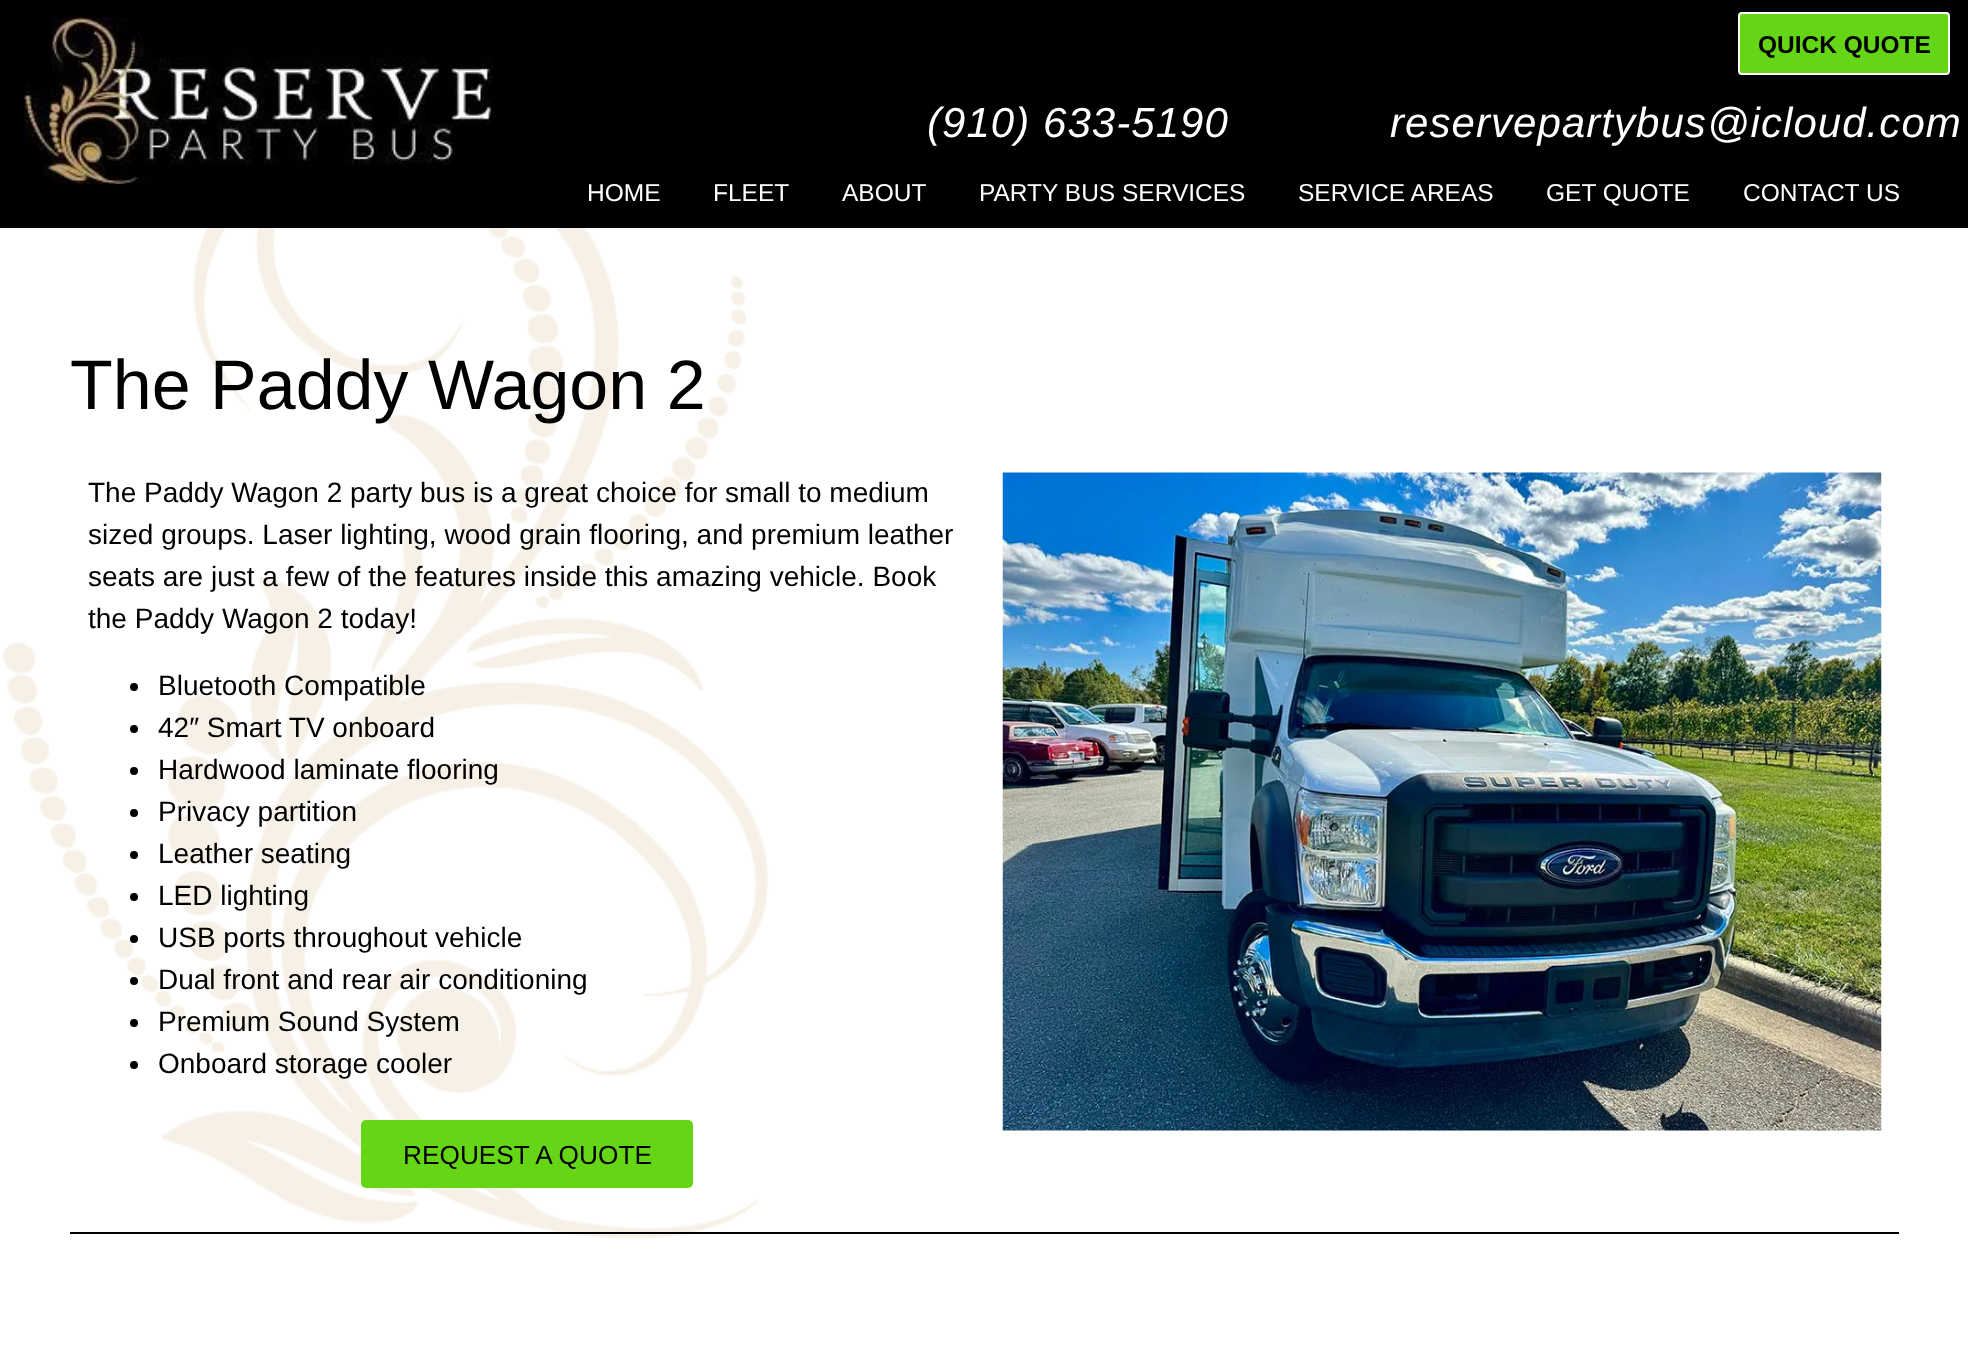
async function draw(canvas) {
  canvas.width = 1968;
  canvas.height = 1352;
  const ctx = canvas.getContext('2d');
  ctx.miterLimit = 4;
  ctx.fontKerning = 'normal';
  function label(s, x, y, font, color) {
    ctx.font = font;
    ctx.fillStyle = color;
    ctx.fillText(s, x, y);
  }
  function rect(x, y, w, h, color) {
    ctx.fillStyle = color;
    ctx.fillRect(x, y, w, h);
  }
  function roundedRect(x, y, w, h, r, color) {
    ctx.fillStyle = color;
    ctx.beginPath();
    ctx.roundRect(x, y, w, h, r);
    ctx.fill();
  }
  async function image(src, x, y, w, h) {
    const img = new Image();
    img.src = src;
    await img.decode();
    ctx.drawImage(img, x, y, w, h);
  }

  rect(0, 0, 1968, 1352, '#000');
  await image('assets/img1.png', 24, 17, 469, 167);
  ctx.fillStyle = '#65d615';
  ctx.beginPath();
  ctx.roundRect(1739, 13, 210, 61, 3);
  ctx.fill();
  ctx.strokeStyle = '#fff';
  ctx.lineWidth = 2;
  ctx.stroke();
  label('QUICK QUOTE', 1758, 53, 'bold 24.5px Liberation Sans', '#000');
  ctx.letterSpacing = '1.05px';
  label('(910) 633-5190', 927, 137, 'italic 42px Liberation Sans', '#fff');
  label('reservepartybus@icloud.com', 1390, 137, 'italic 42px Liberation Sans', '#fff');
  ctx.letterSpacing = '0px';
  label('HOME', 587, 201, '24.5px Liberation Sans', '#fff');
  label('FLEET', 713, 201, '24.5px Liberation Sans', '#fff');
  label('ABOUT', 842, 201, '24.5px Liberation Sans', '#fff');
  label('PARTY BUS SERVICES', 979, 201, '24.5px Liberation Sans', '#fff');
  label('SERVICE AREAS', 1298, 201, '24.5px Liberation Sans', '#fff');
  label('GET QUOTE', 1546, 201, '24.5px Liberation Sans', '#fff');
  label('CONTACT US', 1743, 201, '24.5px Liberation Sans', '#fff');
  rect(0, 228, 1968, 1124, '#fff');
  await image('assets/img2.png', 3, 228, 766, 1012);
  label('The Paddy Wagon 2', 70, 409, '70px Liberation Sans', '#000');
  label('The Paddy Wagon 2 party bus is a great choice for small to medium', 88, 502, '28px Liberation Sans', '#000');
  label('sized groups. Laser lighting, wood grain flooring, and premium leather', 88, 544, '28px Liberation Sans', '#000');
  label('seats are just a few of the features inside this amazing vehicle. Book', 88, 586, '28px Liberation Sans', '#000');
  label('the Paddy Wagon 2 today!', 88, 628, '28px Liberation Sans', '#000');
  ctx.beginPath();
  ctx.arc(134, 687, 4, 0, 2 * Math.PI);
  ctx.fill();
  label('Bluetooth Compatible', 158, 695, '28px Liberation Sans', '#000');
  ctx.beginPath();
  ctx.arc(134, 729, 4, 0, 2 * Math.PI);
  ctx.fill();
  label('42″ Smart TV onboard', 158, 737, '28px Liberation Sans', '#000');
  ctx.beginPath();
  ctx.arc(134, 771, 4, 0, 2 * Math.PI);
  ctx.fill();
  label('Hardwood laminate flooring', 158, 779, '28px Liberation Sans', '#000');
  ctx.beginPath();
  ctx.arc(134, 813, 4, 0, 2 * Math.PI);
  ctx.fill();
  label('Privacy partition', 158, 821, '28px Liberation Sans', '#000');
  ctx.beginPath();
  ctx.arc(134, 855, 4, 0, 2 * Math.PI);
  ctx.fill();
  label('Leather seating', 158, 863, '28px Liberation Sans', '#000');
  ctx.beginPath();
  ctx.arc(134, 897, 4, 0, 2 * Math.PI);
  ctx.fill();
  label('LED lighting', 158, 905, '28px Liberation Sans', '#000');
  ctx.beginPath();
  ctx.arc(134, 939, 4, 0, 2 * Math.PI);
  ctx.fill();
  label('USB ports throughout vehicle', 158, 947, '28px Liberation Sans', '#000');
  ctx.beginPath();
  ctx.arc(134, 981, 4, 0, 2 * Math.PI);
  ctx.fill();
  label('Dual front and rear air conditioning', 158, 989, '28px Liberation Sans', '#000');
  ctx.beginPath();
  ctx.arc(134, 1023, 4, 0, 2 * Math.PI);
  ctx.fill();
  label('Premium Sound System', 158, 1031, '28px Liberation Sans', '#000');
  ctx.beginPath();
  ctx.arc(134, 1065, 4, 0, 2 * Math.PI);
  ctx.fill();
  label('Onboard storage cooler', 158, 1073, '28px Liberation Sans', '#000');
  roundedRect(361, 1120, 332, 68, 5, '#65d615');
  label('REQUEST A QUOTE', 403, 1164, '26.25px Liberation Sans', '#000');
  await image('assets/img3.png', 1002, 472, 880, 659);
  rect(70, 1232, 1829, 2, '#000');
}

draw(document.querySelector('canvas'));
